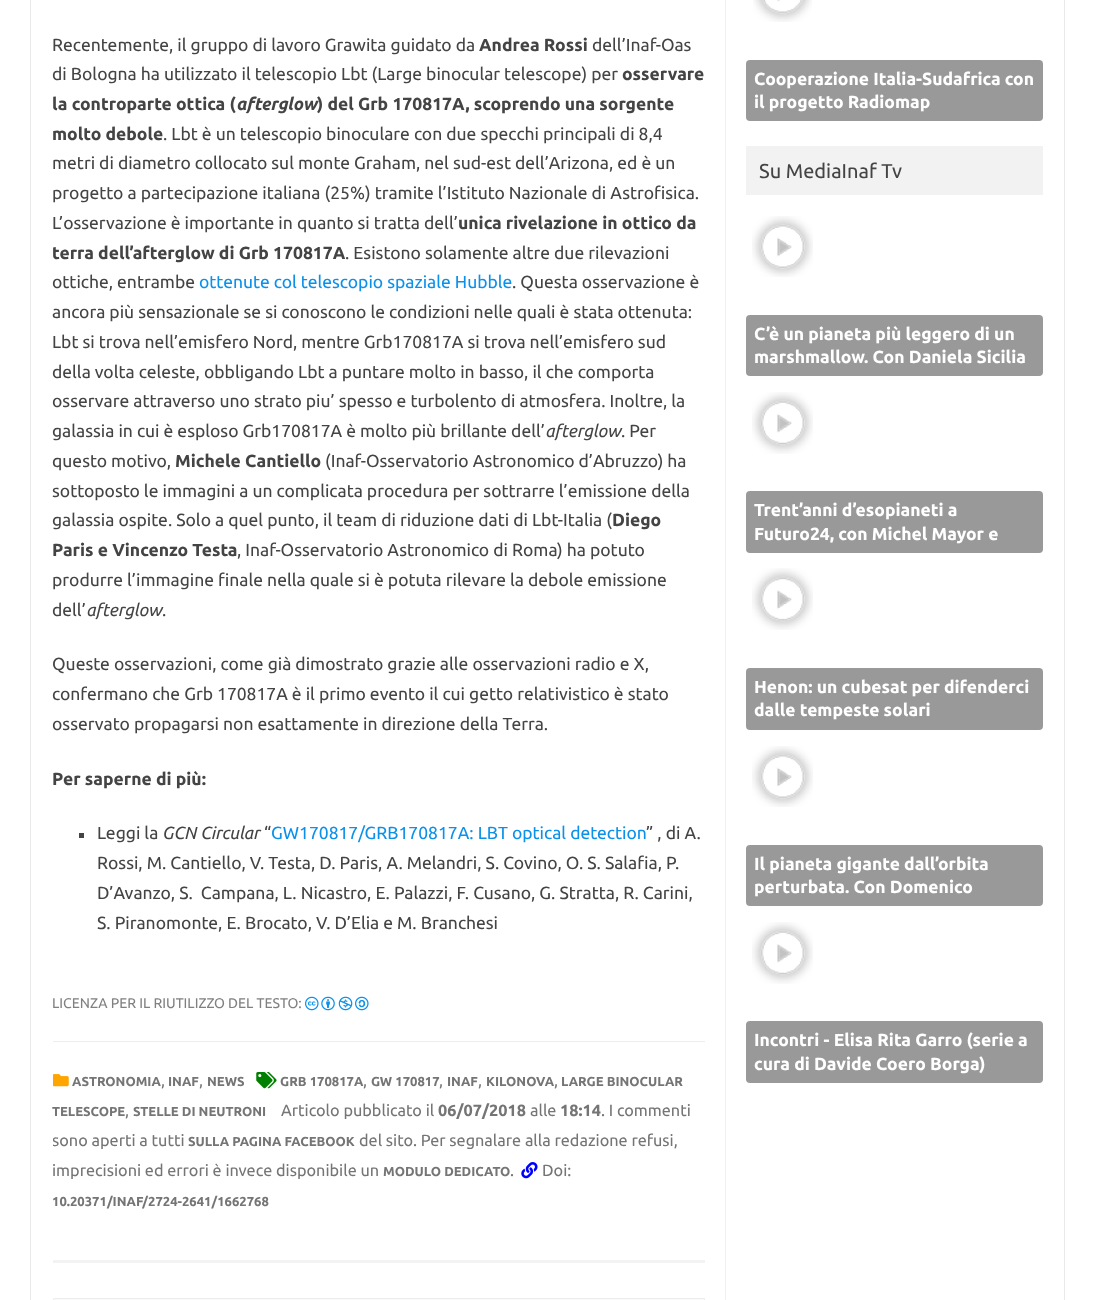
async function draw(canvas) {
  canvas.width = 1095;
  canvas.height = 1300;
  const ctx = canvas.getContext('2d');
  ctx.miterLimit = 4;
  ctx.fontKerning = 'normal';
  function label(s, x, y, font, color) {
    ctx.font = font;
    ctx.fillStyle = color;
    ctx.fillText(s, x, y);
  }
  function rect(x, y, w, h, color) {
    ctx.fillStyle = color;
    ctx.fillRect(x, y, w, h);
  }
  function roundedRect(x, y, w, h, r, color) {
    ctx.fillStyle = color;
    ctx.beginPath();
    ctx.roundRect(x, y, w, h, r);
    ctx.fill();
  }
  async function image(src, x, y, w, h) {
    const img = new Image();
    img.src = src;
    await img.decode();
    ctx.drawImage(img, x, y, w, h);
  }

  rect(0, 0, 1095, 1300, '#fff');
  ctx.strokeStyle = '#e9e9e9';
  ctx.strokeRect(30.5, -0.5, 1034, 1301);
  rect(725, 0, 1, 1300, '#f1f1f1');
  rect(53, 1260, 652, 3, '#f3f3f3');
  label('Recentemente, il gruppo di lavoro Grawita guidato da', 52, 51, '17.5px Ubuntu', '#444');
  label('Andrea Rossi', 479, 51, 'bold 17.5px Ubuntu', '#444');
  label('dell’Inaf-Oas', 592, 51, '17.5px Ubuntu', '#444');
  label('di Bologna ha utilizzato il telescopio Lbt (Large binocular telescope) per', 52, 80, '17.5px Ubuntu', '#444');
  label('osservare', 622, 80, 'bold 17.5px Ubuntu', '#444');
  label('la controparte ottica (', 52, 110, 'bold 17.5px Ubuntu', '#444');
  label('afterglow', 236, 110, 'italic bold 17.5px Ubuntu', '#444');
  label(') del Grb 170817A, scoprendo una sorgente', 317, 110, 'bold 17.5px Ubuntu', '#444');
  label('molto debole', 52, 140, 'bold 17.5px Ubuntu', '#444');
  label('. Lbt è un telescopio binoculare con due specchi principali di 8,4', 163, 140, '17.5px Ubuntu', '#444');
  label('metri di diametro collocato sul monte Graham, nel sud-est dell’Arizona, ed è un', 52, 169, '17.5px Ubuntu', '#444');
  label('progetto a partecipazione italiana (25%) tramite l’Istituto Nazionale di Astrofisica.', 52, 199, '17.5px Ubuntu', '#444');
  label('L’osservazione è importante in quanto si tratta dell’', 52, 229, '17.5px Ubuntu', '#444');
  label('unica rivelazione in ottico da', 458, 229, 'bold 17.5px Ubuntu', '#444');
  label('terra dell’afterglow di Grb 170817A', 52, 259, 'bold 17.5px Ubuntu', '#444');
  label('. Esistono solamente altre due rilevazioni', 345, 259, '17.5px Ubuntu', '#444');
  label('ottiche, entrambe', 52, 288, '17.5px Ubuntu', '#444');
  label('ottenute col telescopio spaziale Hubble', 199, 288, '17.5px Ubuntu', '#0b91ea');
  label('. Questa osservazione è', 512, 288, '17.5px Ubuntu', '#444');
  label('ancora più sensazionale se si conoscono le condizioni nelle quali è stata ottenuta:', 52, 318, '17.5px Ubuntu', '#444');
  label('Lbt si trova nell’emisfero Nord, mentre Grb170817A si trova nell’emisfero sud', 52, 348, '17.5px Ubuntu', '#444');
  label('della volta celeste, obbligando Lbt a puntare molto in basso, il che comporta', 52, 378, '17.5px Ubuntu', '#444');
  label('osservare attraverso uno strato piu’ spesso e turbolento di atmosfera. Inoltre, la', 52, 407, '17.5px Ubuntu', '#444');
  label('galassia in cui è esploso Grb170817A è molto più brillante dell’', 52, 437, '17.5px Ubuntu', '#444');
  label('afterglow', 545, 437, 'italic 17.5px Ubuntu', '#444');
  label('. Per', 621, 437, '17.5px Ubuntu', '#444');
  label('questo motivo,', 52, 467, '17.5px Ubuntu', '#444');
  label('Michele Cantiello', 175, 467, 'bold 17.5px Ubuntu', '#444');
  label('(Inaf-Osservatorio Astronomico d’Abruzzo) ha', 325, 467, '17.5px Ubuntu', '#444');
  label('sottoposto le immagini a un complicata procedura per sottrarre l’emissione della', 52, 497, '17.5px Ubuntu', '#444');
  label('galassia ospite. Solo a quel punto, il team di riduzione dati di Lbt-Italia (', 52, 526, '17.5px Ubuntu', '#444');
  label('Diego', 612, 526, 'bold 17.5px Ubuntu', '#444');
  label('Paris e Vincenzo Testa', 52, 556, 'bold 17.5px Ubuntu', '#444');
  label(', Inaf-Osservatorio Astronomico di Roma) ha potuto', 237, 556, '17.5px Ubuntu', '#444');
  label('produrre l’immagine finale nella quale si è potuta rilevare la debole emissione', 52, 586, '17.5px Ubuntu', '#444');
  label('dell’', 52, 616, '17.5px Ubuntu', '#444');
  label('afterglow', 86, 616, 'italic 17.5px Ubuntu', '#444');
  label('.', 162, 616, '17.5px Ubuntu', '#444');
  label('Queste osservazioni, come già dimostrato grazie alle osservazioni radio e X,', 52, 670, '17.5px Ubuntu', '#444');
  label('confermano che Grb 170817A è il primo evento il cui getto relativistico è stato', 52, 700, '17.5px Ubuntu', '#444');
  label('osservato propagarsi non esattamente in direzione della Terra.', 52, 730, '17.5px Ubuntu', '#444');
  label('Per saperne di più:', 52, 785, 'bold 17.5px Ubuntu', '#444');
  rect(79, 833, 5, 5, '#444');
  label('Leggi la', 97, 839, '17.5px Ubuntu', '#444');
  label('GCN Circular', 162, 839, 'italic 17.5px Ubuntu', '#444');
  label('“', 264, 839, '17.5px Ubuntu', '#444');
  label('GW170817/GRB170817A: LBT optical detection', 271, 839, '17.5px Ubuntu', '#0b91ea');
  label('” , di A.', 646, 839, '17.5px Ubuntu', '#444');
  label('Rossi, M. Cantiello, V. Testa, D. Paris, A. Melandri, S. Covino, O. S. Salafia, P.', 97, 869, '17.5px Ubuntu', '#444');
  label('D’Avanzo, S.  Campana, L. Nicastro, E. Palazzi, F. Cusano, G. Stratta, R. Carini,', 97, 899, '17.5px Ubuntu', '#444');
  label('S. Piranomonte, E. Brocato, V. D’Elia e M. Branchesi', 97, 929, '17.5px Ubuntu', '#444');
  label('LICENZA PER IL RIUTILIZZO DEL TESTO:', 52, 1008, '14px Ubuntu', '#808080');
  await image('assets/img1.png', 305, 996, 14, 15);
  await image('assets/img2.png', 321, 996, 14, 15);
  await image('assets/img3.png', 338, 996, 15, 15);
  await image('assets/img4.png', 355, 996, 14, 15);
  rect(53, 1041, 652, 1, '#ededed');
  await image('assets/img5.png', 53, 1074, 16, 13);
  label('ASTRONOMIA', 72, 1086, 'bold 13px Ubuntu', '#757575');
  label('INAF', 168, 1086, 'bold 13px Ubuntu', '#757575');
  label('NEWS', 207, 1086, 'bold 13px Ubuntu', '#757575');
  await image('assets/img6.png', 256, 1072, 21, 17);
  label('GRB 170817A', 280, 1086, 'bold 13px Ubuntu', '#757575');
  label('GW 170817', 371, 1086, 'bold 13px Ubuntu', '#757575');
  label('INAF', 447, 1086, 'bold 13px Ubuntu', '#757575');
  label('KILONOVA', 486, 1086, 'bold 13px Ubuntu', '#757575');
  label('LARGE BINOCULAR', 561, 1086, 'bold 13px Ubuntu', '#757575');
  label(',', 161, 1086, '16.25px Ubuntu', '#757575');
  label(',', 199, 1086, '16.25px Ubuntu', '#757575');
  label(',', 363, 1086, '16.25px Ubuntu', '#757575');
  label(',', 439, 1086, '16.25px Ubuntu', '#757575');
  label(',', 478, 1086, '16.25px Ubuntu', '#757575');
  label(',', 554, 1086, '16.25px Ubuntu', '#757575');
  label('TELESCOPE', 52, 1116, 'bold 13px Ubuntu', '#757575');
  label(',', 125, 1116, '16.25px Ubuntu', '#757575');
  label('STELLE DI NEUTRONI', 133, 1116, 'bold 13px Ubuntu', '#757575');
  label('Articolo pubblicato il', 281, 1116, '16.25px Ubuntu', '#757575');
  label('06/07/2018', 438, 1116, 'bold 16.25px Ubuntu', '#757575');
  label('alle', 530, 1116, '16.25px Ubuntu', '#757575');
  label('18:14', 560, 1116, 'bold 16.25px Ubuntu', '#757575');
  label('. I commenti', 601, 1116, '16.25px Ubuntu', '#757575');
  ctx.save();
  ctx.beginPath();
  ctx.rect(53, 1043, 652, 172);
  ctx.clip();
  label('sono aperti a tutti', 52, 1146, '16.25px Ubuntu', '#757575');
  ctx.restore();
  label('SULLA PAGINA FACEBOOK', 188, 1146, 'bold 13px Ubuntu', '#757575');
  label('del sito. Per segnalare alla redazione refusi,', 359, 1146, '16.25px Ubuntu', '#757575');
  label('imprecisioni ed errori è invece disponibile un', 52, 1176, '16.25px Ubuntu', '#757575');
  label('MODULO DEDICATO', 383, 1176, 'bold 13px Ubuntu', '#757575');
  label('.', 510, 1176, '16.25px Ubuntu', '#757575');
  await image('assets/img7.png', 521, 1162, 17, 17);
  label('Doi:', 542, 1176, '16.25px Ubuntu', '#757575');
  label('10.20371/INAF/2724-2641/1662768', 52, 1206, 'bold 13px Ubuntu', '#757575');
  ctx.fillStyle = '#f9f9f9';
  ctx.beginPath();
  ctx.rect(53.5, 1298.5, 651, 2);
  ctx.fill();
  ctx.strokeStyle = '#ededed';
  ctx.stroke();
  await image('assets/img8.png', 753, 0, 59, 22);
  roundedRect(746, 60, 297, 61, 4, '#999');
  label('Cooperazione Italia-Sudafrica con', 754, 85, 'bold 17.5px Ubuntu', '#fff');
  label('il progetto Radiomap', 754, 108, 'bold 17.5px Ubuntu', '#fff');
  rect(746, 146, 297, 49, '#f2f2f2');
  label('Su MediaInaf Tv', 759, 178, '20px Ubuntu', '#444');
  await image('assets/img9.png', 752, 216, 61, 61);
  roundedRect(746, 315, 297, 61, 4, '#999');
  label('C’è un pianeta più leggero di un', 754, 340, 'bold 17.5px Ubuntu', '#fff');
  label('marshmallow. Con Daniela Sicilia', 754, 363, 'bold 17.5px Ubuntu', '#fff');
  await image('assets/img10.png', 752, 392, 61, 62);
  roundedRect(746, 491, 297, 62, 4, '#999');
  label('Trent’anni d’esopianeti a', 754, 516, 'bold 17.5px Ubuntu', '#fff');
  label('Futuro24, con Michel Mayor e', 754, 540, 'bold 17.5px Ubuntu', '#fff');
  await image('assets/img11.png', 752, 568, 61, 62);
  roundedRect(746, 668, 297, 62, 4, '#999');
  label('Henon: un cubesat per difenderci', 754, 693, 'bold 17.5px Ubuntu', '#fff');
  label('dalle tempeste solari', 754, 716, 'bold 17.5px Ubuntu', '#fff');
  await image('assets/img9.png', 752, 746, 61, 61);
  roundedRect(746, 845, 297, 61, 4, '#999');
  label('Il pianeta gigante dall’orbita', 754, 870, 'bold 17.5px Ubuntu', '#fff');
  label('perturbata. Con Domenico', 754, 893, 'bold 17.5px Ubuntu', '#fff');
  await image('assets/img10.png', 752, 922, 61, 62);
  roundedRect(746, 1021, 297, 62, 4, '#999');
  label('Incontri - Elisa Rita Garro (serie a', 754, 1046, 'bold 17.5px Ubuntu', '#fff');
  label('cura di Davide Coero Borga)', 754, 1070, 'bold 17.5px Ubuntu', '#fff');
}

draw(document.querySelector('canvas'));
